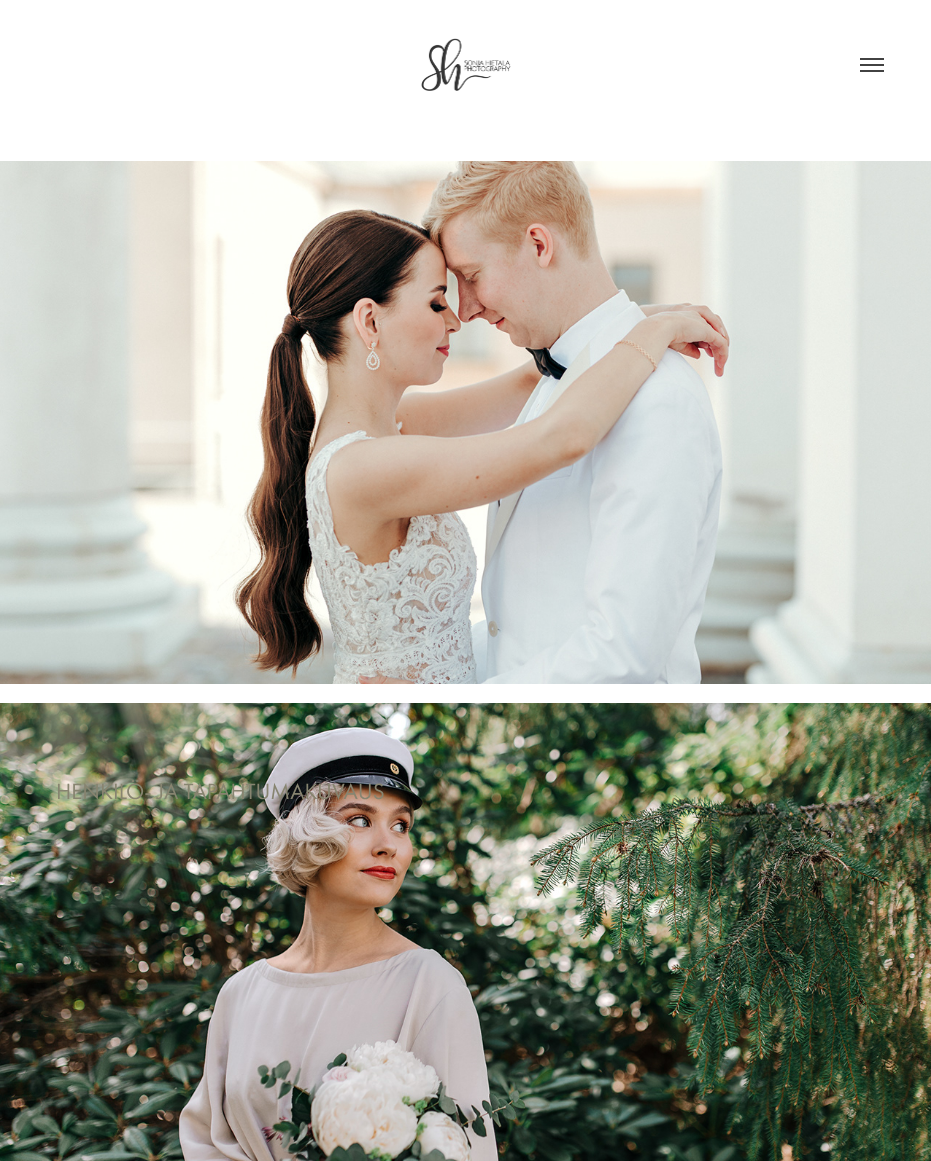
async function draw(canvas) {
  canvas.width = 931;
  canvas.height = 1161;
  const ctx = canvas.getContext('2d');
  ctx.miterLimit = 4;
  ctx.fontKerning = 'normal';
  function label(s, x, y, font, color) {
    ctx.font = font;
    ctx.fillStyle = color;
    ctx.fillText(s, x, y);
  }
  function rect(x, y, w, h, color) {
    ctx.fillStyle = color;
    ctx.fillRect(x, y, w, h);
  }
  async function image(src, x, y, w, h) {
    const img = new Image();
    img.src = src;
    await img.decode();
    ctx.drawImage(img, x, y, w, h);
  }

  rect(0, 0, 931, 1161, '#fff');
  await image('assets/img1.png', 421, 38, 90, 53);
  rect(860, 58, 24, 2, '#424242');
  rect(860, 64, 24, 2, '#424242');
  rect(860, 70, 24, 2, '#424242');
  await image('assets/img2.png', 0, 161, 931, 523);
  await image('assets/img3.png', 0, 703, 931, 458);
  ctx.save();
  ctx.beginPath();
  ctx.rect(1, 780, 930, 23);
  ctx.clip();
  label('HENKILÖ- JA TAPAHTUMAKUVAUS', 56, 799, '23px Futura PT', '#878470');
  ctx.restore();
}

draw(document.querySelector('canvas'));
